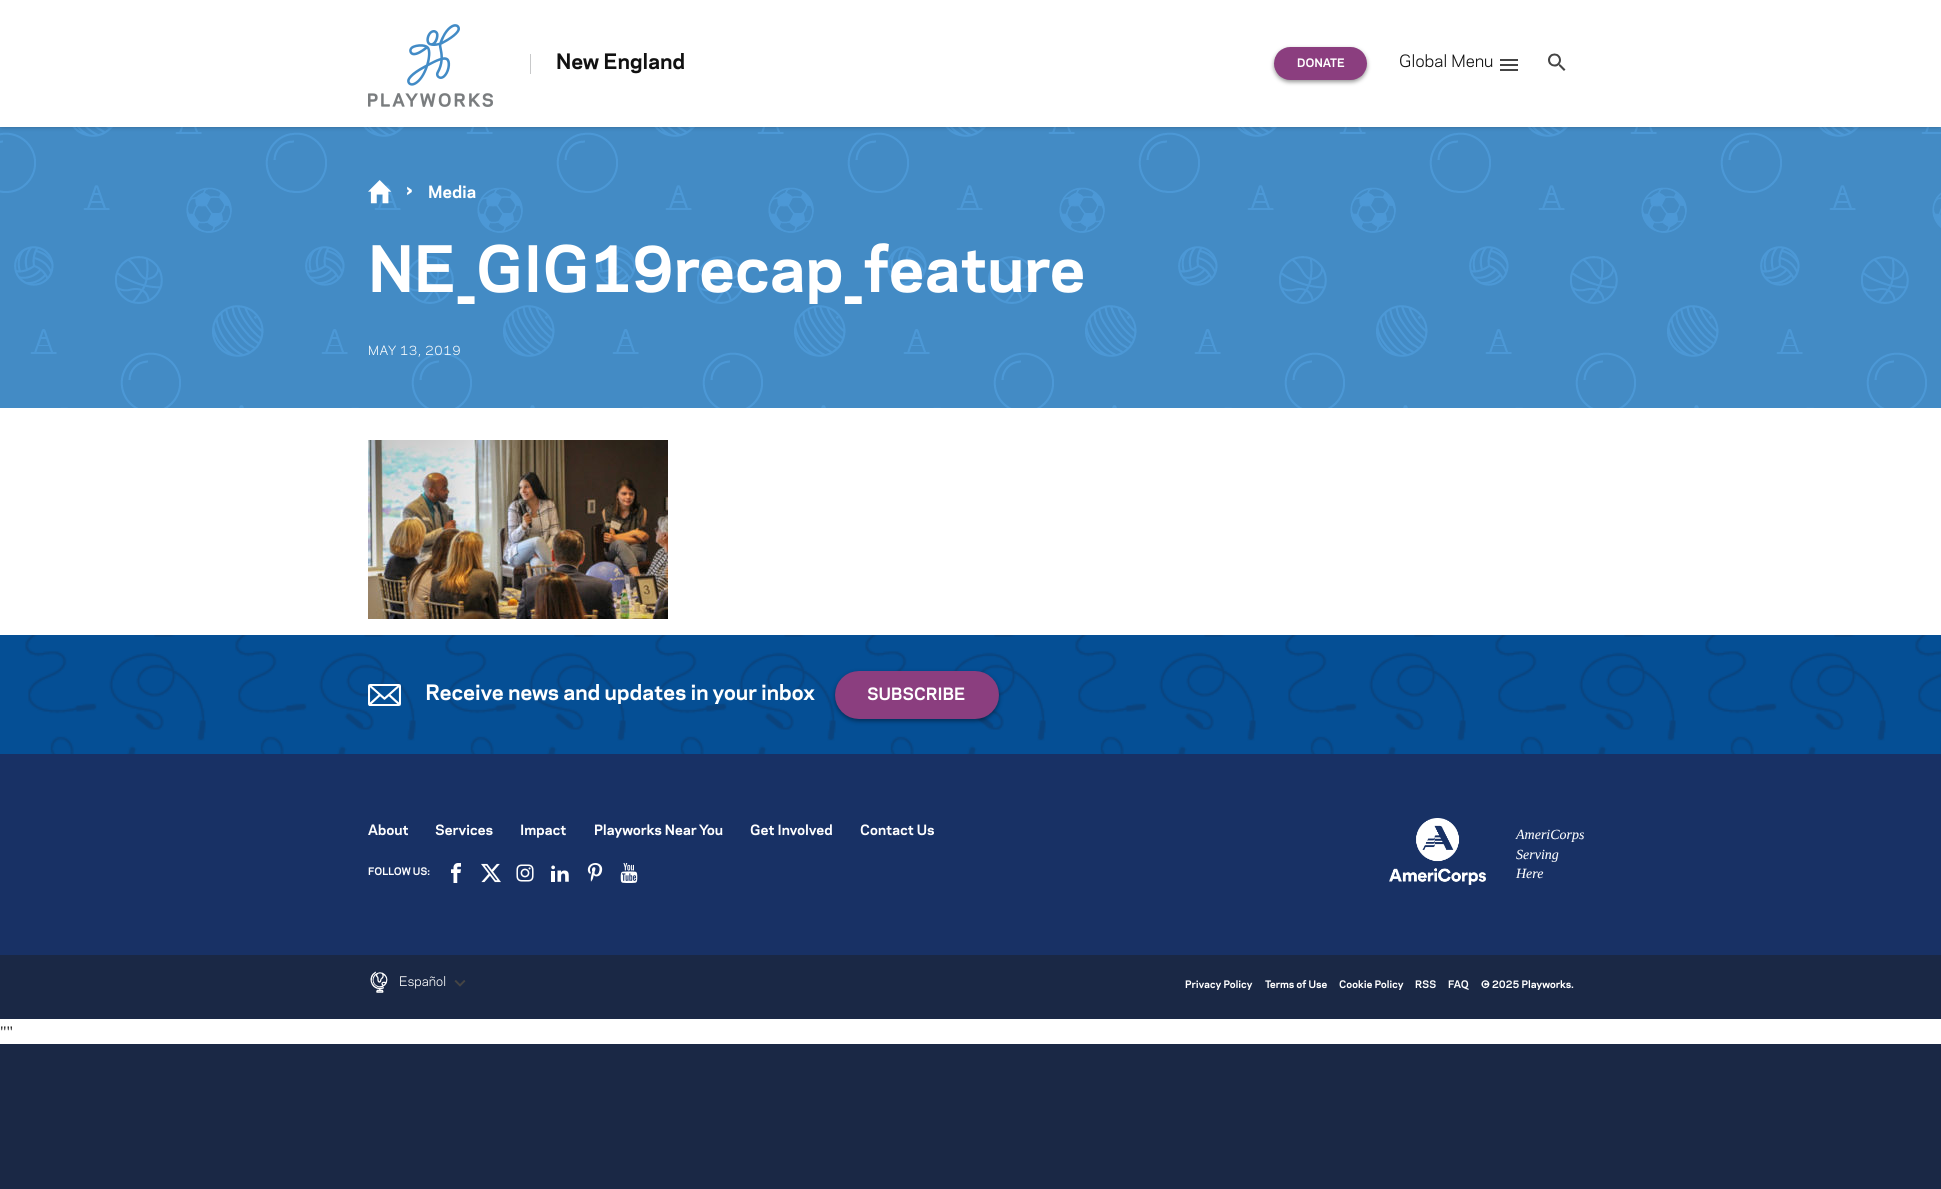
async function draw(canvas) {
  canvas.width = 1941;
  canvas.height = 1189;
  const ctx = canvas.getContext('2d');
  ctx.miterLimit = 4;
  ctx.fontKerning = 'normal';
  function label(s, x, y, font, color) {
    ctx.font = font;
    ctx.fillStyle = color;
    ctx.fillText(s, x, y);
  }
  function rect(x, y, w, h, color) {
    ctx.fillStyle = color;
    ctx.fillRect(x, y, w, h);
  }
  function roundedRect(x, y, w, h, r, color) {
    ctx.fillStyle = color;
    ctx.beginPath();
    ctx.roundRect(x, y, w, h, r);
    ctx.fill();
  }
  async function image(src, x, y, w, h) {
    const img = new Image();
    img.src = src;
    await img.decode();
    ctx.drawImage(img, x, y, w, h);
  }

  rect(0, 0, 1941, 1189, '#1a2845');
  rect(0, 408, 1941, 636, '#fff');
  rect(0, 127, 1941, 281, '#438bc5');
  await image('assets/img7.png', 0, 127, 1941, 281);
  ctx.fillStyle = '#1111114d';
  ctx.filter = 'blur(2px)';
  ctx.beginPath();
  ctx.rect(0, 0, 1941, 127);
  ctx.fill();
  ctx.filter = 'none';
  rect(0, 0, 1941, 127, '#fff');
  await image('assets/img1.png', 368, 24, 125, 83);
  rect(530, 54, 1, 20, '#c8c9ca');
  await image('assets/img2.png', 557, 53, 127, 21);
  ctx.fillStyle = '#0000006b';
  ctx.filter = 'blur(2px)';
  ctx.beginPath();
  ctx.roundRect(1274, 49, 93, 33, 16.5);
  ctx.fill();
  ctx.filter = 'none';
  roundedRect(1274, 47, 93, 33, 16.5, '#8b3e7f');
  await image('assets/img3.png', 1297, 58, 48, 10);
  await image('assets/img4.png', 1400, 54, 93, 14);
  await image('assets/img5.png', 1500, 59, 18, 12);
  await image('assets/img6.png', 1548, 53, 18, 18);
  await image('assets/img8.png', 368, 180, 24, 24);
  await image('assets/img9.png', 407, 186, 5, 10);
  await image('assets/img10.png', 429, 185, 47, 14);
  await image('assets/img11.png', 372, 243, 711, 61);
  await image('assets/img12.png', 369, 345, 91, 12);
  await image('assets/img13.png', 368, 440, 300, 179);
  rect(0, 635, 1941, 119, '#054f95');
  await image('assets/img14.png', 25, 635, 1916, 119);
  await image('assets/img15.png', 368, 684, 33, 22);
  await image('assets/img16.png', 426, 684, 389, 20);
  ctx.fillStyle = '#0000006b';
  ctx.filter = 'blur(2px)';
  ctx.beginPath();
  ctx.roundRect(835, 673, 164, 48, 24);
  ctx.fill();
  ctx.filter = 'none';
  roundedRect(835, 671, 164, 48, 24, '#8b3e7f');
  await image('assets/img17.png', 867, 687, 98, 14);
  rect(0, 754, 1941, 201, '#183165');
  await image('assets/img18.png', 368, 824, 41, 12);
  await image('assets/img19.png', 435, 824, 58, 12);
  await image('assets/img20.png', 521, 824, 45, 14);
  await image('assets/img21.png', 595, 824, 128, 14);
  await image('assets/img22.png', 750, 824, 82, 12);
  await image('assets/img23.png', 860, 824, 74, 12);
  await image('assets/img24.png', 1389, 818, 97, 67);
  label('AmeriCorps', 1516, 839, 'italic 14px Liberation Serif', '#fff');
  label('Serving', 1516, 859, 'italic 14px Liberation Serif', '#fff');
  label('Here', 1516, 878, 'italic 14px Liberation Serif', '#fff');
  await image('assets/img25.png', 368, 867, 62, 9);
  await image('assets/img26.png', 451, 863, 10, 20);
  await image('assets/img27.png', 481, 863, 20, 20);
  await image('assets/img28.png', 516, 864, 18, 18);
  await image('assets/img29.png', 551, 865, 18, 17);
  await image('assets/img30.png', 587, 863, 16, 19);
  await image('assets/img31.png', 620, 863, 18, 20);
  rect(0, 955, 1941, 64, '#1a2845');
  await image('assets/img32.png', 370, 971, 18, 22);
  await image('assets/img33.png', 400, 976, 46, 13);
  await image('assets/img34.png', 454, 980, 12, 7);
  await image('assets/img35.png', 1185, 980, 68, 10);
  await image('assets/img36.png', 1265, 980, 62, 9);
  await image('assets/img37.png', 1339, 980, 65, 10);
  await image('assets/img38.png', 1415, 980, 21, 9);
  await image('assets/img39.png', 1448, 980, 21, 10);
  await image('assets/img40.png', 1481, 980, 93, 10);
  label('""', 0, 1037, '16px Liberation Serif', '#111');
}

draw(document.querySelector('canvas'));
